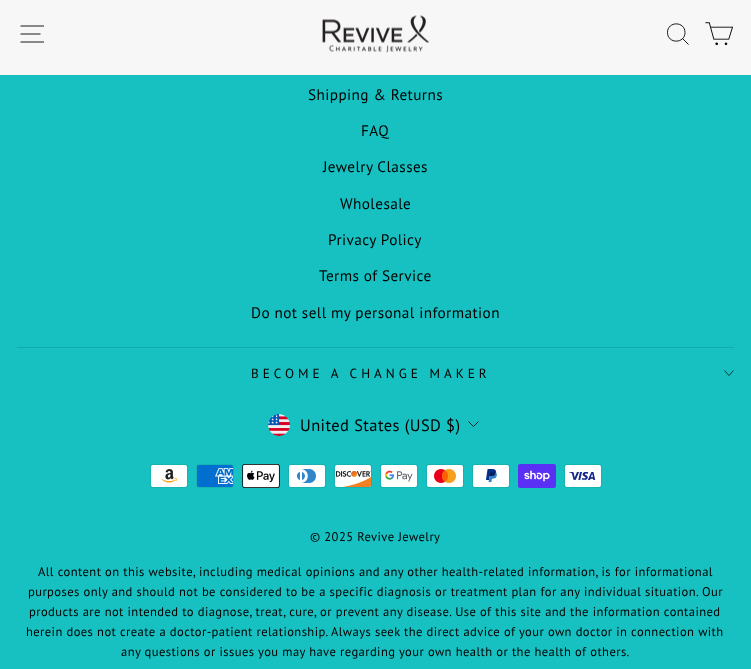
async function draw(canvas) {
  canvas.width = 751;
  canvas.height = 669;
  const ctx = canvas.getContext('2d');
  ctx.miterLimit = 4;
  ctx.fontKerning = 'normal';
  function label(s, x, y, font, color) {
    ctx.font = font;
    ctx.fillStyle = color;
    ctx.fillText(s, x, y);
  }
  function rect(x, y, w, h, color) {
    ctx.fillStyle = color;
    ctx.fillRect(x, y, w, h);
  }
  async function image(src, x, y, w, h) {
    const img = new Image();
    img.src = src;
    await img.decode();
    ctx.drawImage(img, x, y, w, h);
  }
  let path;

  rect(0, 0, 751, 669, '#17c1c1');
  ctx.fillStyle = '#00000033';
  ctx.filter = 'blur(0.5px)';
  ctx.beginPath();
  ctx.rect(0, 0, 751, 75);
  ctx.fill();
  ctx.filter = 'none';
  rect(0, 0, 751, 75, '#f7f7f7');
  path = new Path2D('M20.5 26H44M20.5 34H40.5M20.5 42H44');
  ctx.strokeStyle = '#000';
  ctx.lineWidth = 0.9;
  ctx.stroke(path);
  await image('assets/img1.png', 322, 15, 107, 38);
  path = new Path2D('M685 32.5C685 44 667.5 44 667.5 32.5C667.5 21 685 21 685 32.5ZM688.5 44.5L682.5 38.5');
  ctx.stroke(path);
  await image('assets/img2.png', 705, 22, 28, 24);
  ctx.letterSpacing = '0.41px';
  label('Shipping & Returns', 308, 100, '15.25px PT Sans', '#000');
  label('FAQ', 361, 136, '15.25px PT Sans', '#000');
  label('Jewelry Classes', 323, 172, '15.25px PT Sans', '#000');
  label('Wholesale', 340, 209, '15.25px PT Sans', '#000');
  label('Privacy Policy', 328, 245, '15.25px PT Sans', '#000');
  label('Terms of Service', 319, 281, '15.25px PT Sans', '#000');
  label('Do not sell my personal information', 251, 318, '15.25px PT Sans', '#000');
  rect(17, 347, 717, 1, '#14aaaa');
  ctx.letterSpacing = '4px';
  label('BECOME A CHANGE MAKER', 251, 378, '13.25px PT Sans', '#000');
  path = new Path2D('M724.5 370.5L729 375.5L733.5 370.5');
  ctx.lineWidth = 0.7;
  ctx.stroke(path);
  await image('assets/img3.png', 268, 414, 22, 22);
  ctx.letterSpacing = '0.41px';
  label('United States (USD $)', 300, 431, '16.5px PT Sans', '#000');
  path = new Path2D('M468.5 421.5L473.5 426.5L478.5 421.5');
  ctx.lineWidth = 0.8;
  ctx.stroke(path);
  await image('assets/img4.png', 150, 464, 38, 24);
  await image('assets/img5.png', 196, 464, 38, 24);
  await image('assets/img6.png', 242, 464, 38, 24);
  await image('assets/img7.png', 288, 464, 38, 24);
  await image('assets/img8.png', 334, 464, 38, 24);
  await image('assets/img9.png', 380, 464, 38, 24);
  await image('assets/img10.png', 426, 464, 38, 24);
  await image('assets/img11.png', 472, 464, 38, 24);
  await image('assets/img12.png', 518, 464, 38, 24);
  await image('assets/img13.png', 564, 464, 38, 24);
  label('© 2025 Revive Jewelry', 310, 541, '12.6px PT Sans', '#000');
  label('All content on this website, including medical opinions and any other health-related information, is for informational', 38, 576, '12.6px PT Sans', '#000');
  label('purposes only and should not be considered to be a specific diagnosis or treatment plan for any individual situation. Our', 28, 596, '12.6px PT Sans', '#000');
  label('products are not intended to diagnose, treat, cure, or prevent any disease. Use of this site and the information contained', 29, 616, '12.6px PT Sans', '#000');
  label('herein does not create a doctor-patient relationship. Always seek the direct advice of your own doctor in connection with', 26, 636, '12.6px PT Sans', '#000');
  label('any questions or issues you may have regarding your own health or the health of others.', 121, 656, '12.6px PT Sans', '#000');
}

draw(document.querySelector('canvas'));
